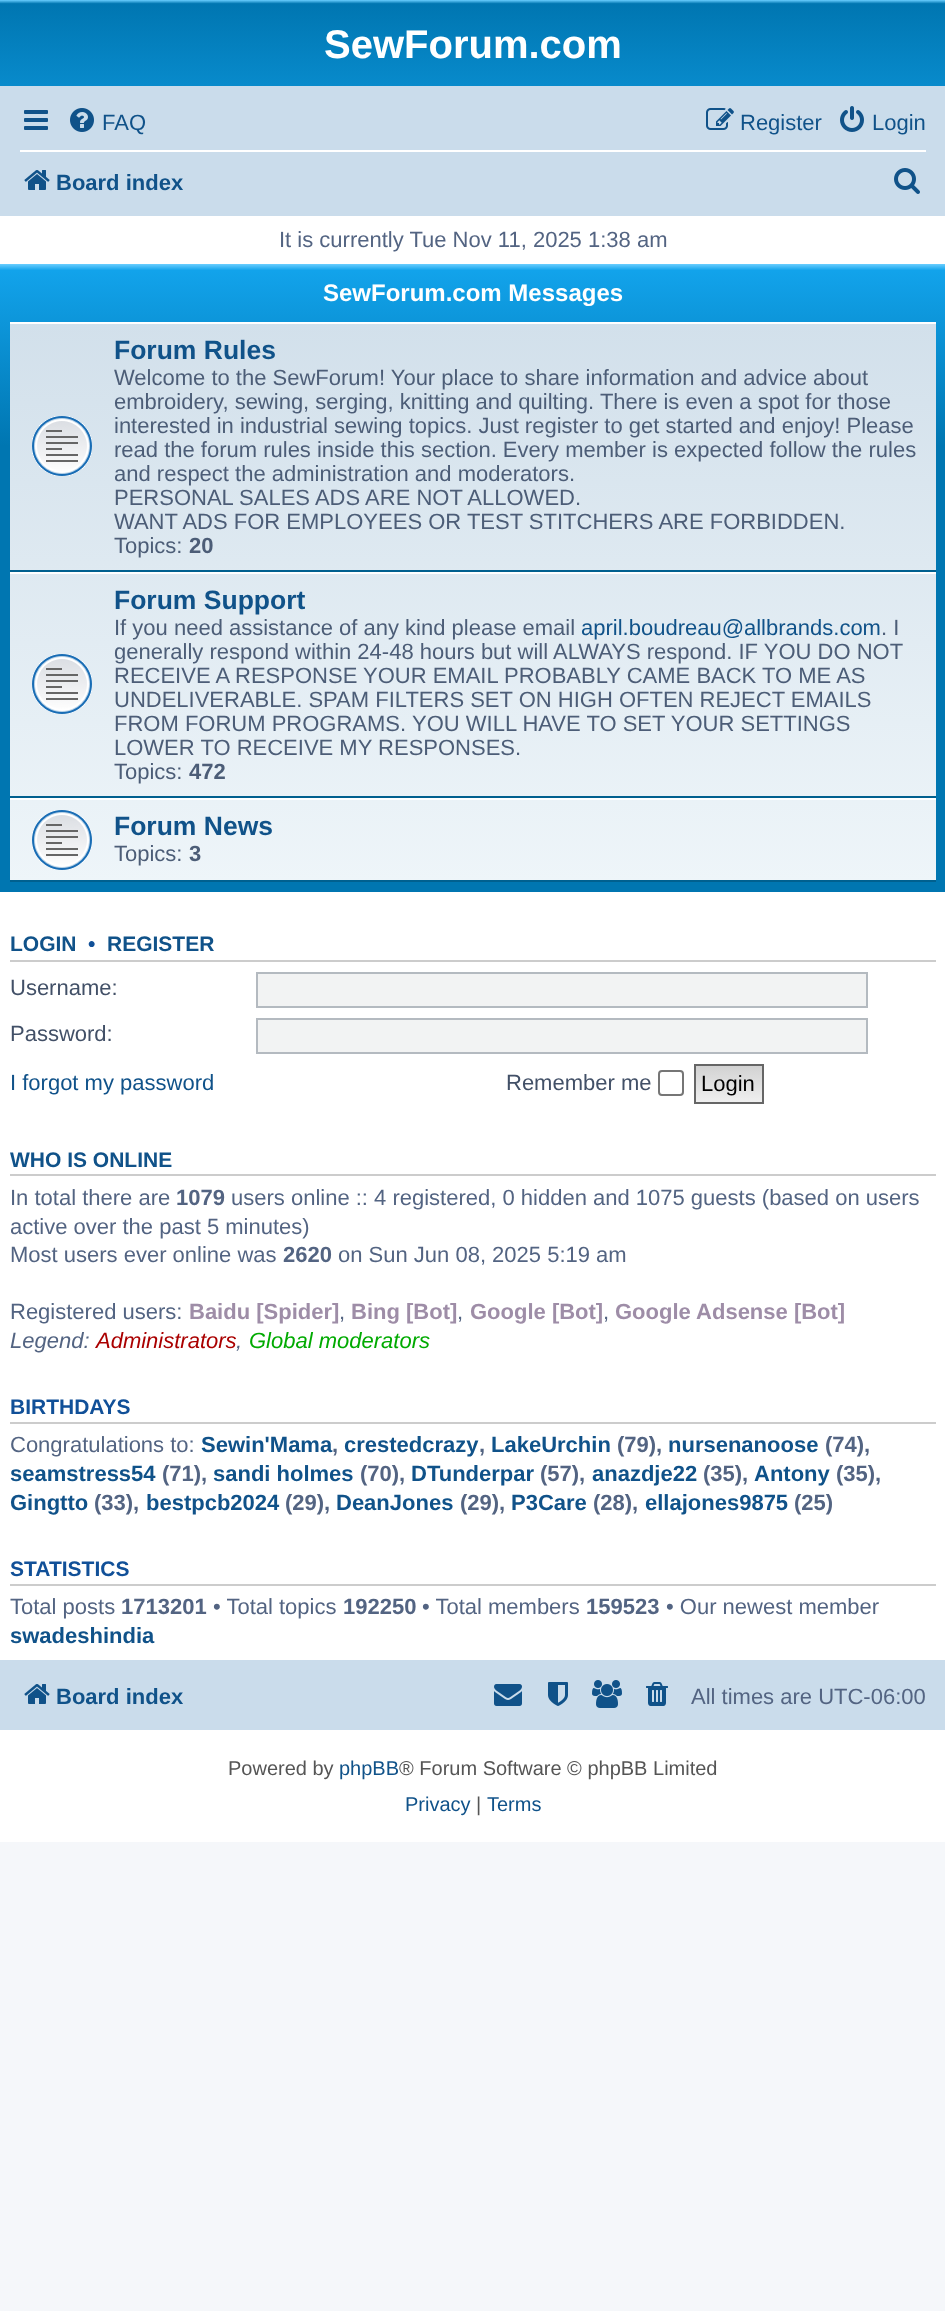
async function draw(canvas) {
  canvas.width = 945;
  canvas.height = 2311;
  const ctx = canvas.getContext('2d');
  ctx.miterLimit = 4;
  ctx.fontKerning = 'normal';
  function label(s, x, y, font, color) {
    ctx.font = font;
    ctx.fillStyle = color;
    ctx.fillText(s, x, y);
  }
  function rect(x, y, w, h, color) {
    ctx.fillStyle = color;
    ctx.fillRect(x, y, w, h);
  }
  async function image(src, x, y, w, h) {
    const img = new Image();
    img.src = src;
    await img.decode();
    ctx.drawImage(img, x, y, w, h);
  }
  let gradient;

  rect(0, 0, 945, 2311, '#f5f7fa');
  rect(0, 216, 945, 1626, '#fff');
  gradient = ctx.createLinearGradient(473, 0, 473, 184);
  gradient.addColorStop(0, '#6aceff');
  gradient.addColorStop(0.02, '#0076b1');
  gradient.addColorStop(1, '#12a3eb');
  ctx.fillStyle = gradient;
  ctx.fillRect(0, 0, 945, 86);
  label('SewForum.com', 324, 58, 'bold 40px Liberation Sans', '#fff');
  rect(0, 86, 945, 130, '#cadceb');
  await image('assets/img1.png', 24, 110, 24, 20);
  await image('assets/img2.png', 70, 108, 24, 24);
  label('FAQ', 102, 130, '22px Liberation Sans', '#105289');
  await image('assets/img3.png', 706, 108, 28, 22);
  label('Register', 740, 130, '22px Liberation Sans', '#105289');
  await image('assets/img4.png', 840, 106, 24, 26);
  label('Login', 872, 130, '22px Liberation Sans', '#105289');
  rect(20, 150, 906, 2, '#fff');
  await image('assets/img5.png', 24, 170, 26, 20);
  label('Board index', 56, 190, 'bold 22px Liberation Sans', '#105289');
  await image('assets/img6.png', 894, 168, 26, 26);
  label('It is currently Tue Nov 11, 2025 1:38 am', 279, 247, '22px Liberation Sans', '#536482');
  gradient = ctx.createLinearGradient(473, 264, 473, 892);
  gradient.addColorStop(0, '#6aceff');
  gradient.addColorStop(0.01, '#12a3eb');
  gradient.addColorStop(0.29, '#0076b1');
  gradient.addColorStop(1, '#0076b1');
  ctx.fillStyle = gradient;
  ctx.fillRect(0, 264, 945, 628);
  label('SewForum.com Messages', 323, 301, 'bold 24px Liberation Sans', '#fff');
  gradient = ctx.createLinearGradient(473, 322, 473, 882);
  gradient.addColorStop(0, '#d2e0eb');
  gradient.addColorStop(1, '#eef5f9');
  ctx.fillStyle = gradient;
  ctx.fillRect(10, 324, 926, 556);
  rect(10, 322, 926, 2, '#fff');
  rect(10, 570, 926, 2, '#00608f');
  await image('assets/img7.png', 32, 416, 60, 60);
  label('Forum Rules', 114, 359, 'bold 26.5px Liberation Sans', '#105289');
  label('Welcome to the SewForum! Your place to share information and advice about', 114, 385, '22px Liberation Sans', '#4c5d77');
  label('embroidery, sewing, serging, knitting and quilting. There is even a spot for those', 114, 409, '22px Liberation Sans', '#4c5d77');
  label('interested in industrial sewing topics. Just register to get started and enjoy! Please', 114, 433, '22px Liberation Sans', '#4c5d77');
  label('read the forum rules inside this section. Every member is expected follow the rules', 114, 457, '22px Liberation Sans', '#4c5d77');
  label('and respect the administration and moderators.', 114, 481, '22px Liberation Sans', '#4c5d77');
  label('PERSONAL SALES ADS ARE NOT ALLOWED.', 114, 505, '22px Liberation Sans', '#4c5d77');
  label('WANT ADS FOR EMPLOYEES OR TEST STITCHERS ARE FORBIDDEN.', 114, 529, '22px Liberation Sans', '#4c5d77');
  label('Topics:', 114, 553, '22px Liberation Sans', '#4c5d77');
  label('20', 189, 553, 'bold 22px Liberation Sans', '#4c5d77');
  rect(10, 572, 926, 2, '#fff');
  rect(10, 796, 926, 2, '#00608f');
  await image('assets/img8.png', 32, 654, 60, 60);
  label('Forum Support', 114, 609, 'bold 26.5px Liberation Sans', '#105289');
  label('If you need assistance of any kind please email', 114, 635, '22px Liberation Sans', '#4c5d77');
  label('april.boudreau@allbrands.com', 581, 635, '22px Liberation Sans', '#105289');
  label('. I', 881, 635, '22px Liberation Sans', '#4c5d77');
  label('generally respond within 24-48 hours but will ALWAYS respond. IF YOU DO NOT', 114, 659, '22px Liberation Sans', '#4c5d77');
  label('RECEIVE A RESPONSE YOUR EMAIL PROBABLY CAME BACK TO ME AS', 114, 683, '22px Liberation Sans', '#4c5d77');
  label('UNDELIVERABLE. SPAM FILTERS SET ON HIGH OFTEN REJECT EMAILS', 114, 707, '22px Liberation Sans', '#4c5d77');
  label('FROM FORUM PROGRAMS.', 114, 731, '22px Liberation Sans', '#4c5d77');
  label('YOU WILL HAVE TO SET YOUR SETTINGS', 412, 731, '22px Liberation Sans', '#4c5d77');
  label('LOWER TO RECEIVE MY RESPONSES.', 114, 755, '22px Liberation Sans', '#4c5d77');
  label('Topics:', 114, 779, '22px Liberation Sans', '#4c5d77');
  label('472', 189, 779, 'bold 22px Liberation Sans', '#4c5d77');
  rect(10, 798, 926, 2, '#fff');
  rect(10, 880, 926, 2, '#00608f');
  await image('assets/img9.png', 32, 810, 60, 60);
  label('Forum News', 114, 835, 'bold 26.5px Liberation Sans', '#105289');
  label('Topics:', 114, 861, '22px Liberation Sans', '#4c5d77');
  label('3', 189, 861, 'bold 22px Liberation Sans', '#4c5d77');
  rect(10, 960, 926, 2, '#ccc');
  label('LOGIN', 10, 951, 'bold 21px Liberation Sans', '#105289');
  label('•', 88, 951, 'bold 21px Liberation Sans', '#115098');
  label('REGISTER', 107, 951, 'bold 21px Liberation Sans', '#105289');
  label('Username:', 10, 995, '22px Liberation Sans', '#425067');
  ctx.fillStyle = '#f2f3f3';
  ctx.beginPath();
  ctx.rect(257, 973, 610, 34);
  ctx.fill();
  ctx.strokeStyle = '#b4bac0';
  ctx.lineWidth = 2;
  ctx.stroke();
  label('Password:', 10, 1041, '22px Liberation Sans', '#425067');
  ctx.fillStyle = '#f2f3f3';
  ctx.beginPath();
  ctx.rect(257, 1019, 610, 34);
  ctx.fill();
  ctx.stroke();
  label('I forgot my password', 10, 1090, '22px Liberation Sans', '#105289');
  label('Remember me', 506, 1090, '22px Liberation Sans', '#425067');
  ctx.beginPath();
  ctx.roundRect(659, 1071, 24, 24, 3);
  ctx.strokeStyle = '#767676';
  ctx.stroke();
  gradient = ctx.createLinearGradient(729, 1066, 729, 1102);
  gradient.addColorStop(0, '#d2d2d2');
  gradient.addColorStop(1, '#efefef');
  ctx.fillStyle = gradient;
  ctx.fillRect(696, 1066, 66, 36);
  ctx.strokeStyle = '#666';
  ctx.strokeRect(695, 1065, 68, 38);
  label('Login', 701, 1091, '22px Liberation Sans', '#000');
  rect(10, 1174, 926, 2, '#ccc');
  label('WHO IS ONLINE', 10, 1167, 'bold 21px Liberation Sans', '#105289');
  label('In total there are', 10, 1205, '22px Liberation Sans', '#536482');
  label('1079', 176, 1205, 'bold 22px Liberation Sans', '#536482');
  label('users online :: 4 registered, 0 hidden and 1075 guests (based on users', 231, 1205, '22px Liberation Sans', '#536482');
  label('active over the past 5 minutes)', 10, 1234, '22px Liberation Sans', '#536482');
  label('Most users ever online was', 10, 1262, '22px Liberation Sans', '#536482');
  label('2620', 283, 1262, 'bold 22px Liberation Sans', '#536482');
  label('on Sun Jun 08, 2025 5:19 am', 338, 1262, '22px Liberation Sans', '#536482');
  label('Registered users:', 10, 1319, '22px Liberation Sans', '#536482');
  label('Baidu [Spider]', 189, 1319, 'bold 22px Liberation Sans', '#9e8da7');
  label(',', 339, 1319, '22px Liberation Sans', '#536482');
  label('Bing [Bot]', 351, 1319, 'bold 22px Liberation Sans', '#9e8da7');
  label(',', 457, 1319, '22px Liberation Sans', '#536482');
  label('Google [Bot]', 470, 1319, 'bold 22px Liberation Sans', '#9e8da7');
  label(',', 603, 1319, '22px Liberation Sans', '#536482');
  label('Google Adsense [Bot]', 615, 1319, 'bold 22px Liberation Sans', '#9e8da7');
  label('Legend:', 10, 1348, 'italic 22px Liberation Sans', '#536482');
  label('Administrators', 96, 1348, 'italic 22px Liberation Sans', '#a00');
  label(',', 236, 1348, 'italic 22px Liberation Sans', '#536482');
  label('Global moderators', 249, 1348, 'italic 22px Liberation Sans', '#0a0');
  rect(10, 1422, 926, 2, '#ccc');
  label('BIRTHDAYS', 10, 1414, 'bold 21px Liberation Sans', '#115098');
  label('Sewin\'Mama', 201, 1452, 'bold 22px Liberation Sans', '#105289');
  label(',', 332, 1452, 'bold 22px Liberation Sans', '#536482');
  label('crestedcrazy', 344, 1452, 'bold 22px Liberation Sans', '#105289');
  label(',', 479, 1452, 'bold 22px Liberation Sans', '#536482');
  label('LakeUrchin', 491, 1452, 'bold 22px Liberation Sans', '#105289');
  label('(79),', 617, 1452, 'bold 22px Liberation Sans', '#536482');
  label('nursenanoose', 668, 1452, 'bold 22px Liberation Sans', '#105289');
  label('(74),', 825, 1452, 'bold 22px Liberation Sans', '#536482');
  label('seamstress54', 10, 1481, 'bold 22px Liberation Sans', '#105289');
  label('(71),', 162, 1481, 'bold 22px Liberation Sans', '#536482');
  label('sandi holmes', 213, 1481, 'bold 22px Liberation Sans', '#105289');
  label('(70),', 360, 1481, 'bold 22px Liberation Sans', '#536482');
  label('DTunderpar', 411, 1481, 'bold 22px Liberation Sans', '#105289');
  label('(57),', 540, 1481, 'bold 22px Liberation Sans', '#536482');
  label('anazdje22', 592, 1481, 'bold 22px Liberation Sans', '#105289');
  label('(35),', 703, 1481, 'bold 22px Liberation Sans', '#536482');
  label('Antony', 754, 1481, 'bold 22px Liberation Sans', '#105289');
  label('(35),', 836, 1481, 'bold 22px Liberation Sans', '#536482');
  label('Gingtto', 10, 1510, 'bold 22px Liberation Sans', '#105289');
  label('(33),', 94, 1510, 'bold 22px Liberation Sans', '#536482');
  label('bestpcb2024', 146, 1510, 'bold 22px Liberation Sans', '#105289');
  label('(29),', 285, 1510, 'bold 22px Liberation Sans', '#536482');
  label('DeanJones', 336, 1510, 'bold 22px Liberation Sans', '#105289');
  label('(29),', 460, 1510, 'bold 22px Liberation Sans', '#536482');
  label('P3Care', 511, 1510, 'bold 22px Liberation Sans', '#105289');
  label('(28),', 593, 1510, 'bold 22px Liberation Sans', '#536482');
  label('ellajones9875', 645, 1510, 'bold 22px Liberation Sans', '#105289');
  label('(25)', 794, 1510, 'bold 22px Liberation Sans', '#536482');
  label('Congratulations to:', 10, 1452, '22px Liberation Sans', '#536482');
  rect(10, 1584, 926, 2, '#ccc');
  label('STATISTICS', 10, 1576, 'bold 21px Liberation Sans', '#115098');
  label('Total posts', 10, 1614, '22px Liberation Sans', '#536482');
  label('1713201', 121, 1614, 'bold 22px Liberation Sans', '#536482');
  label('• Total topics', 213, 1614, '22px Liberation Sans', '#536482');
  label('192250', 343, 1614, 'bold 22px Liberation Sans', '#536482');
  label('• Total members', 422, 1614, '22px Liberation Sans', '#536482');
  label('159523', 586, 1614, 'bold 22px Liberation Sans', '#536482');
  label('• Our newest member', 666, 1614, '22px Liberation Sans', '#536482');
  label('swadeshindia', 10, 1643, 'bold 22px Liberation Sans', '#105289');
  rect(0, 1660, 945, 70, '#cadceb');
  await image('assets/img5.png', 24, 1684, 26, 20);
  label('Board index', 56, 1704, 'bold 22px Liberation Sans', '#105289');
  await image('assets/img10.png', 494, 1684, 28, 22);
  await image('assets/img11.png', 548, 1682, 20, 24);
  await image('assets/img12.png', 592, 1680, 30, 28);
  await image('assets/img13.png', 646, 1682, 22, 24);
  label('All times are UTC-06:00', 691, 1704, '22px Liberation Sans', '#536482');
  label('Powered by', 228, 1775, '20px Liberation Sans', '#555');
  label('phpBB', 339, 1775, '20px Liberation Sans', '#105289');
  label('® Forum Software © phpBB Limited', 399, 1775, '20px Liberation Sans', '#555');
  label('Privacy', 405, 1811, '20px Liberation Sans', '#105289');
  label('|', 476, 1811, '20px Liberation Sans', '#555');
  label('Terms', 487, 1811, '20px Liberation Sans', '#105289');
}

draw(document.querySelector('canvas'));
